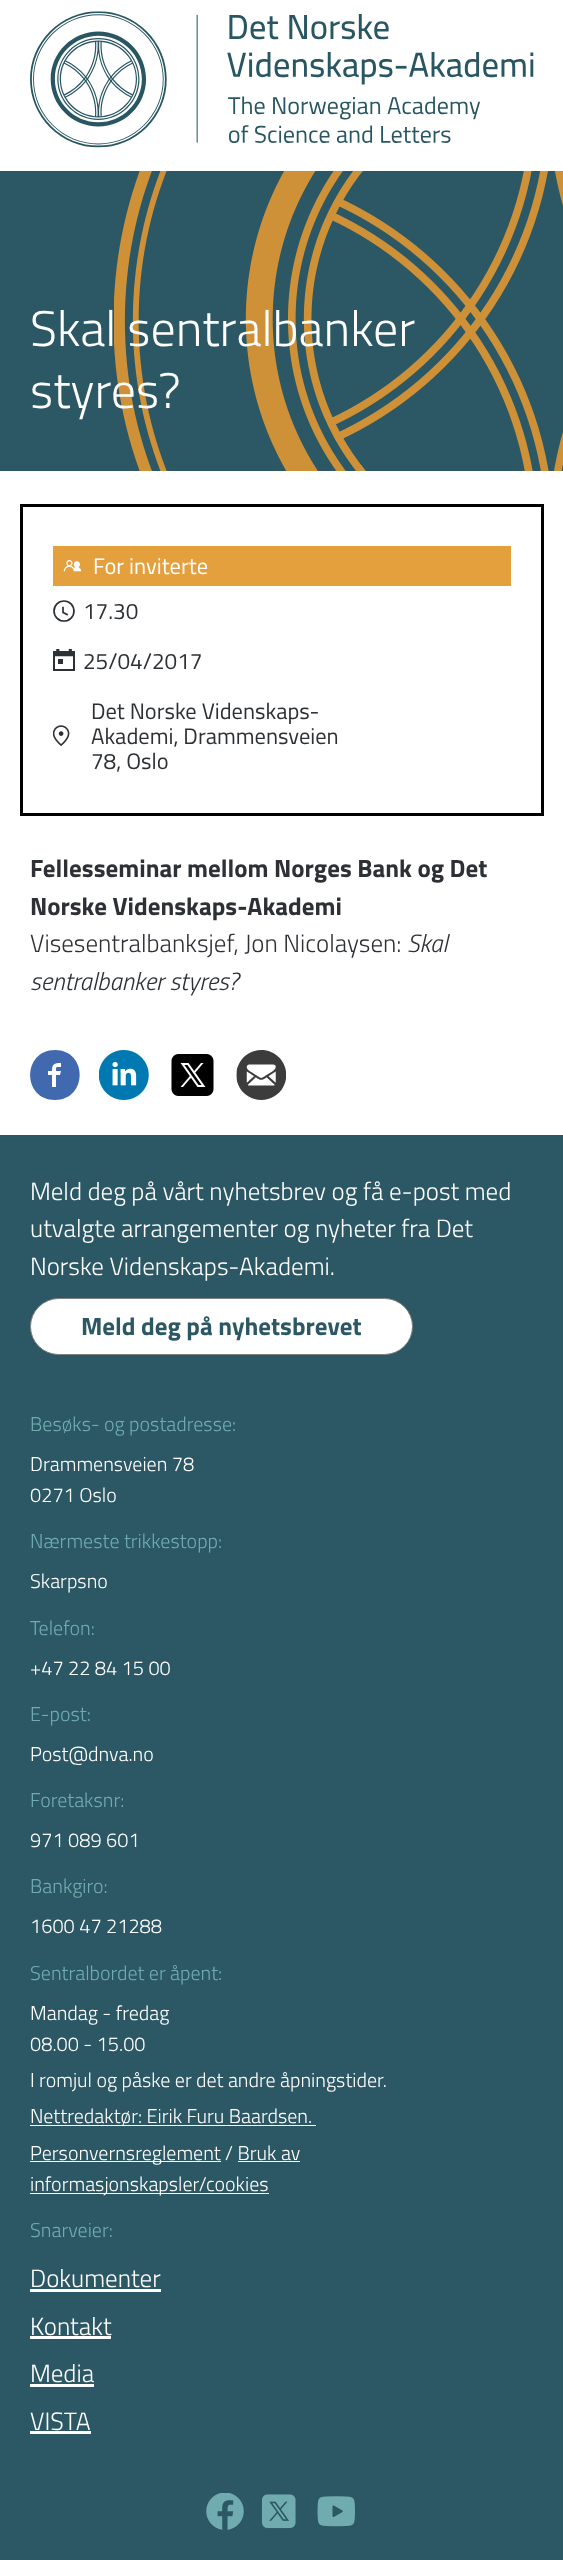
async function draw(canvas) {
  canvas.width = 563;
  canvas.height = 2560;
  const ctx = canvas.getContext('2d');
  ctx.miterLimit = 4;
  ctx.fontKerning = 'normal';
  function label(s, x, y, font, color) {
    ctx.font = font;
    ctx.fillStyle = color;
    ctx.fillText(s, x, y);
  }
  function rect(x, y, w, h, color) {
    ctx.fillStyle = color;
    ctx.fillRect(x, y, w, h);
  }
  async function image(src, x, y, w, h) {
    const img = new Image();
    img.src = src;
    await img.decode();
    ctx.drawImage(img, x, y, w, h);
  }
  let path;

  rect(0, 0, 563, 2560, '#fff');
  await image('assets/img1.png', 30, 11, 504, 137);
  rect(0, 171, 563, 300, '#2c5764');
  await image('assets/img2.png', 114, 171, 449, 300);
  label('Skal sentralbanker', 30, 346, '300 50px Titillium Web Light', '#fff');
  label('styres?', 30, 408, '300 50px Titillium Web Light', '#fff');
  ctx.strokeStyle = '#000';
  ctx.lineWidth = 3;
  ctx.strokeRect(21.5, 505.5, 521, 309);
  rect(53, 546, 458, 40, '#e4a03d');
  await image('assets/img3.png', 63, 560, 19, 12);
  label('For inviterte', 93, 574, '22.5px Titillium Web', '#fff');
  path = new Path2D('M67 614.5L63 612.5V607.5');
  ctx.strokeStyle = '#2d3034';
  ctx.lineWidth = 1.7;
  ctx.lineCap = 'square';
  ctx.stroke(path);
  ctx.beginPath();
  ctx.arc(64, 611, 10, 0, 2 * Math.PI);
  ctx.stroke();
  label('17.30', 83, 619, '22.5px Titillium Web', '#2d3034');
  await image('assets/img4.png', 53, 649, 22, 22);
  label('25/04/2017', 83, 669, '22.5px Titillium Web', '#2d3034');
  await image('assets/img5.png', 53, 725, 17, 22);
  label('Det Norske Videnskaps-', 91, 719, '22.5px Titillium Web', '#2d3034');
  label('Akademi, Drammensveien', 91, 744, '22.5px Titillium Web', '#2d3034');
  label('78, Oslo', 91, 769, '22.5px Titillium Web', '#2d3034');
  label('Fellesseminar mellom Norges Bank og Det', 30, 877, 'bold 25px Titillium Web', '#2d3034');
  label('Norske Videnskaps-Akademi', 30, 915, 'bold 25px Titillium Web', '#2d3034');
  label('Visesentralbanksjef, Jon Nicolaysen:', 30, 952, '300 25px Titillium Web Light', '#2d3034');
  label('Skal', 407, 952, 'italic 300 25px Titillium Web Light', '#2d3034');
  label('sentralbanker styres?', 30, 990, 'italic 300 25px Titillium Web Light', '#2d3034');
  ctx.fillStyle = '#4169af';
  path = new Path2D('M55 1050C22 1050 22 1100 55 1100C88 1100 88 1050 55 1050ZM61 1067C56 1067 56 1066 56 1071H61L60 1075H56V1087H52V1075H48V1071H52C52 1064 54 1063 61 1063Z');
  ctx.fill(path);
  await image('assets/img6.png', 99, 1050, 50, 50);
  await image('assets/img7.png', 171, 1054, 43, 42);
  await image('assets/img8.png', 236, 1050, 50, 50);
  rect(0, 1135, 563, 1425, '#2c5764');
  label('Meld deg på vårt nyhetsbrev og få e-post med', 30, 1200, '300 25px Titillium Web Light', '#fff');
  label('utvalgte arrangementer og nyheter fra Det', 30, 1237, '300 25px Titillium Web Light', '#fff');
  label('Norske Videnskaps-Akademi.', 30, 1275, '300 25px Titillium Web Light', '#fff');
  ctx.beginPath();
  ctx.roundRect(30.5, 1298.5, 382, 56, 28);
  ctx.fill();
  ctx.strokeStyle = '#808080';
  ctx.lineWidth = 1;
  ctx.stroke();
  label('Meld deg på nyhetsbrevet', 81, 1335, 'bold 25px Titillium Web', '#2c5764');
  label('Besøks- og postadresse:', 30, 1431, '300 20px Titillium Web Light', '#70acaf');
  label('Drammensveien 78', 30, 1471, '300 20px Titillium Web Light', '#fff');
  label('0271 Oslo', 30, 1502, '300 20px Titillium Web Light', '#fff');
  label('Nærmeste trikkestopp:', 30, 1548, '300 20px Titillium Web Light', '#70acaf');
  label('Skarpsno', 30, 1588, '300 20px Titillium Web Light', '#fff');
  label('Telefon:', 30, 1635, '300 20px Titillium Web Light', '#70acaf');
  label('+47 22 84 15 00', 30, 1675, '300 20px Titillium Web Light', '#fff');
  label('E-post:', 30, 1721, '300 20px Titillium Web Light', '#70acaf');
  label('Post@dnva.no', 30, 1761, '300 20px Titillium Web Light', '#fff');
  label('Foretaksnr:', 30, 1807, '300 20px Titillium Web Light', '#70acaf');
  label('971 089 601', 30, 1847, '300 20px Titillium Web Light', '#fff');
  label('Bankgiro:', 30, 1893, '300 20px Titillium Web Light', '#70acaf');
  label('1600 47 21288', 30, 1933, '300 20px Titillium Web Light', '#fff');
  label('Sentralbordet er åpent:', 30, 1980, '300 20px Titillium Web Light', '#70acaf');
  label('Mandag - fredag', 30, 2020, '300 20px Titillium Web Light', '#fff');
  label('08.00 - 15.00', 30, 2051, '300 20px Titillium Web Light', '#fff');
  label('I romjul og påske er det andre åpningstider.', 30, 2087, '300 20px Titillium Web Light', '#fff');
  rect(30, 2125, 286, 1, '#fff');
  label('Nettredaktør: Eirik Furu Baardsen.', 30, 2123, '300 20px Titillium Web Light', '#fff');
  rect(30, 2161, 191, 1, '#fff');
  label('Personvernsreglement / Bruk av', 30, 2160, '300 20px Titillium Web Light', '#fff');
  rect(30, 2193, 239, 1, '#fff');
  label('informasjonskapsler/cookies', 30, 2191, '300 20px Titillium Web Light', '#fff');
  rect(238, 2161, 62, 1, '#fff');
  label('Snarveier:', 30, 2237, '300 20px Titillium Web Light', '#70acaf');
  label('Dokumenter', 30, 2287, '300 25px Titillium Web Light', '#fff');
  rect(30, 2289, 131, 3, '#fff');
  label('Kontakt', 30, 2335, '300 25px Titillium Web Light', '#fff');
  rect(30, 2336, 81, 3, '#fff');
  label('Media', 30, 2382, '300 25px Titillium Web Light', '#fff');
  rect(30, 2384, 64, 3, '#fff');
  label('VISTA', 30, 2430, '300 25px Titillium Web Light', '#fff');
  rect(30, 2431, 61, 3, '#fff');
  await image('assets/img9.png', 206, 2493, 38, 37);
  await image('assets/img10.png', 261, 2494, 35, 35);
  await image('assets/img11.png', 317, 2496, 38, 31);
}

draw(document.querySelector('canvas'));
